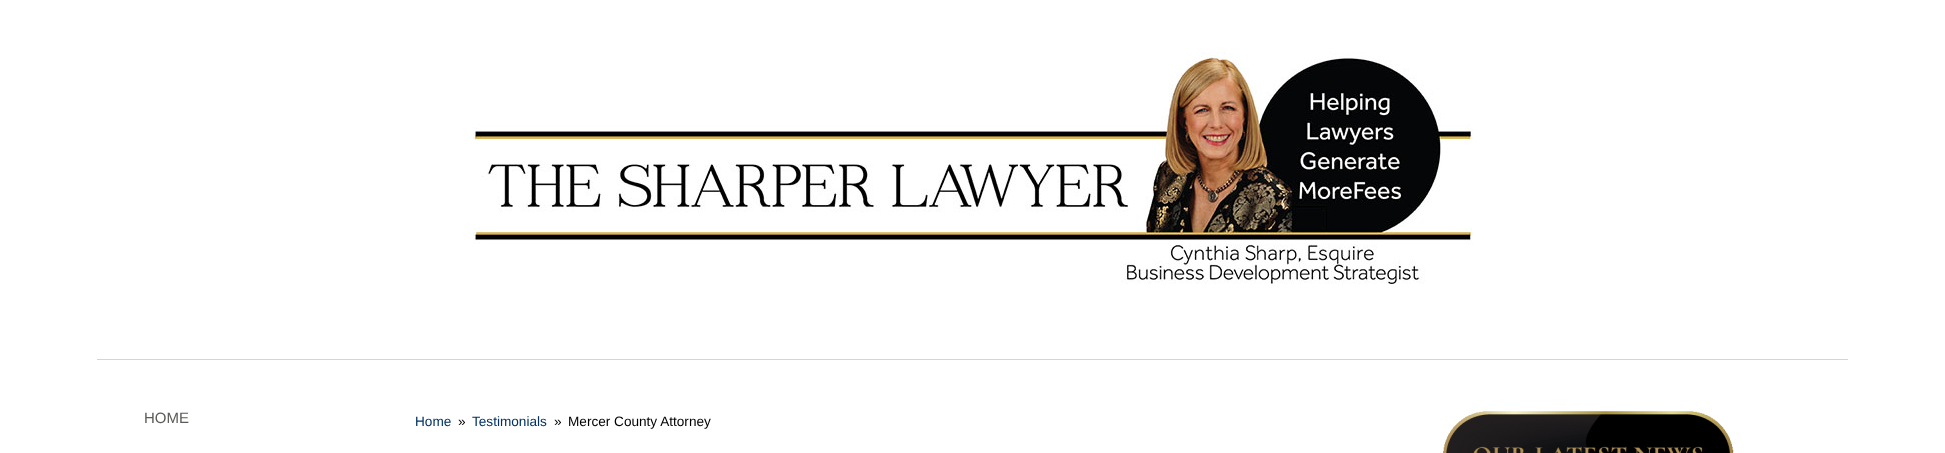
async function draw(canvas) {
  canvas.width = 1945;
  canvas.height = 453;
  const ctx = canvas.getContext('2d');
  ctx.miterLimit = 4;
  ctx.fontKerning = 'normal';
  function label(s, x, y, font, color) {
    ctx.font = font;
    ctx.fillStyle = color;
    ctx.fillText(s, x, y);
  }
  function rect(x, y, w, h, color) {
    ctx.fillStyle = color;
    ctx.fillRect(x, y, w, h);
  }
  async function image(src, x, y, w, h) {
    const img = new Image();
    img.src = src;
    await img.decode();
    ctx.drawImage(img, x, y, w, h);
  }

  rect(0, 0, 1945, 453, '#fff');
  rect(97, 359, 1751, 1, '#d6d4d4');
  await image('assets/img1.png', 473, 52, 1000, 232);
  label('HOME', 144, 423, '15px Liberation Sans', '#5b5b59');
  label('Home', 415, 426, '13.6px Liberation Sans', '#003263');
  label('»', 458, 426, '13.6px Liberation Sans', '#000');
  label('Testimonials', 472, 426, '13.6px Liberation Sans', '#003263');
  label('»', 554, 426, '13.6px Liberation Sans', '#000');
  label('Mercer County Attorney', 568, 426, '13.6px Liberation Sans', '#000');
  await image('assets/img2.png', 1443, 411, 291, 42);
}

draw(document.querySelector('canvas'));
